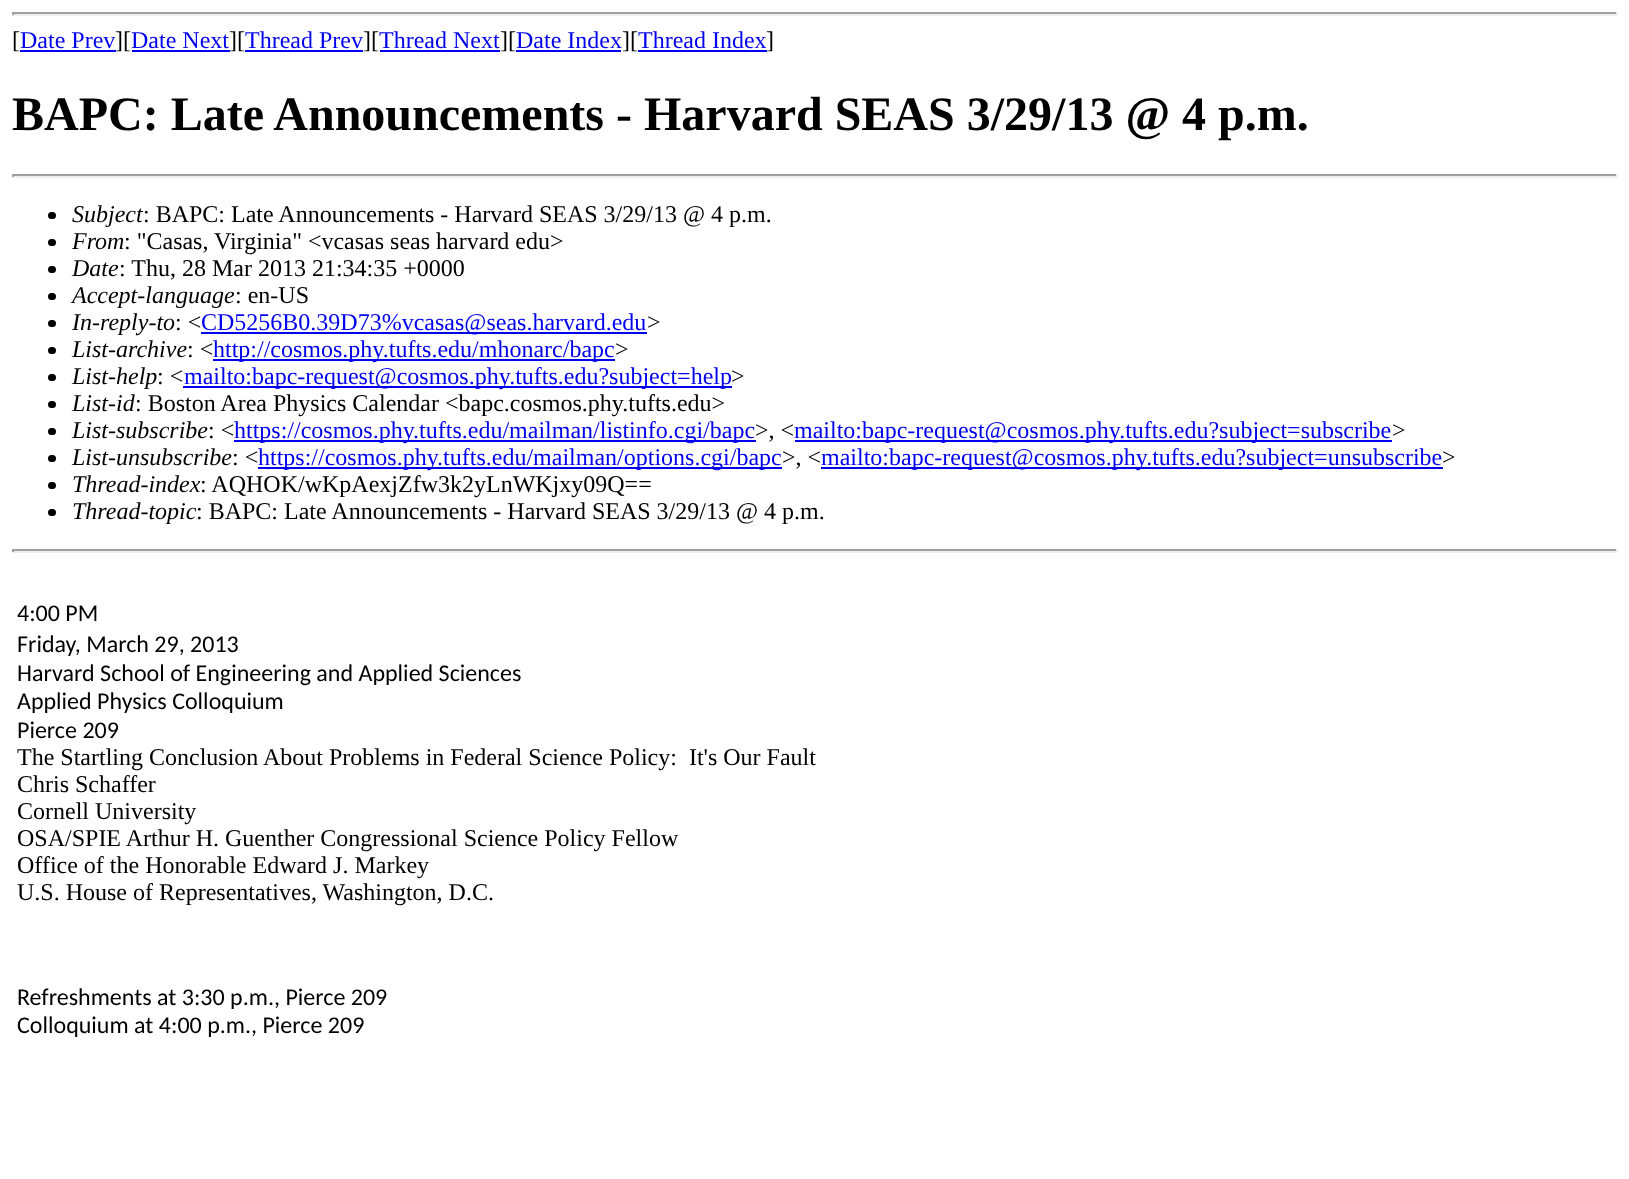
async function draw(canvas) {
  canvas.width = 1629;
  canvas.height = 1179;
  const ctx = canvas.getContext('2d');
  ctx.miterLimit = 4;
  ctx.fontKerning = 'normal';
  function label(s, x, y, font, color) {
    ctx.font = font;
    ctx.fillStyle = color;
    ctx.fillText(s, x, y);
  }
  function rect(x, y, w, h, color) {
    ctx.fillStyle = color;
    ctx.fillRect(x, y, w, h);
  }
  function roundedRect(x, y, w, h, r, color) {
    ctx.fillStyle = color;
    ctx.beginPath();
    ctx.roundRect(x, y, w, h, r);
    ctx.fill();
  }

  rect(0, 0, 1629, 1179, '#fff');
  rect(12, 12, 1605, 2, '#9f9f9f');
  rect(1616, 12, 2, 3, '#eee');
  rect(12, 14, 1605, 2, '#eee');
  rect(12, 12, 2, 3, '#9f9f9f');
  label('[', 12, 48, '24px Liberation Serif', '#000');
  label('Date Prev', 20, 48, '24px Liberation Serif', '#00e');
  rect(20, 50, 96, 2, '#00e');
  label('][', 115, 48, '24px Liberation Serif', '#000');
  label('Date Next', 131, 48, '24px Liberation Serif', '#00e');
  rect(132, 50, 98, 2, '#00e');
  label('][', 229, 48, '24px Liberation Serif', '#000');
  label('Thread Prev', 245, 48, '24px Liberation Serif', '#00e');
  rect(245, 50, 118, 2, '#00e');
  label('][', 363, 48, '24px Liberation Serif', '#000');
  label('Thread Next', 379, 48, '24px Liberation Serif', '#00e');
  rect(380, 50, 120, 2, '#00e');
  label('][', 500, 48, '24px Liberation Serif', '#000');
  label('Date Index', 516, 48, '24px Liberation Serif', '#00e');
  rect(516, 50, 105, 2, '#00e');
  label('][', 622, 48, '24px Liberation Serif', '#000');
  label('Thread Index', 638, 48, '24px Liberation Serif', '#00e');
  rect(638, 50, 129, 2, '#00e');
  label(']', 766, 48, '24px Liberation Serif', '#000');
  label('BAPC: Late Announcements - Harvard SEAS 3/29/13 @ 4 p.m.', 12, 130, 'bold 48px Liberation Serif', '#000');
  rect(12, 174, 1605, 2, '#9f9f9f');
  rect(1616, 174, 2, 3, '#eee');
  rect(12, 176, 1605, 2, '#eee');
  rect(12, 174, 2, 3, '#9f9f9f');
  roundedRect(48, 212, 8, 7, 3.5, '#000');
  label('Subject', 72, 222, 'italic 24px Liberation Serif', '#000');
  label(': BAPC: Late Announcements - Harvard SEAS 3/29/13 @ 4 p.m.', 143, 222, '24px Liberation Serif', '#000');
  roundedRect(48, 239, 8, 7, 3.5, '#000');
  label('From', 72, 249, 'italic 24px Liberation Serif', '#000');
  label(': "Casas, Virginia" <vcasas seas harvard edu>', 124, 249, '24px Liberation Serif', '#000');
  roundedRect(48, 266, 8, 7, 3.5, '#000');
  label('Date', 72, 276, 'italic 24px Liberation Serif', '#000');
  label(': Thu, 28 Mar 2013 21:34:35 +0000', 119, 276, '24px Liberation Serif', '#000');
  roundedRect(48, 293, 8, 7, 3.5, '#000');
  label('Accept-language', 72, 303, 'italic 24px Liberation Serif', '#000');
  label(': en-US', 235, 303, '24px Liberation Serif', '#000');
  roundedRect(48, 320, 8, 7, 3.5, '#000');
  label('In-reply-to', 72, 330, 'italic 24px Liberation Serif', '#000');
  label(': <', 175, 330, '24px Liberation Serif', '#000');
  rect(201, 332, 446, 2, '#00e');
  label('CD5256B0.39D73%vcasas@seas.harvard.edu', 201, 330, '24px Liberation Serif', '#00e');
  label('>', 647, 330, '24px Liberation Serif', '#000');
  roundedRect(48, 347, 8, 7, 3.5, '#000');
  label('List-archive', 72, 357, 'italic 24px Liberation Serif', '#000');
  label(': <', 187, 357, '24px Liberation Serif', '#000');
  rect(213, 359, 402, 2, '#00e');
  label('http://cosmos.phy.tufts.edu/mhonarc/bapc', 213, 357, '24px Liberation Serif', '#00e');
  label('>', 615, 357, '24px Liberation Serif', '#000');
  roundedRect(48, 374, 8, 7, 3.5, '#000');
  label('List-help', 72, 384, 'italic 24px Liberation Serif', '#000');
  label(': <', 157, 384, '24px Liberation Serif', '#000');
  rect(183, 386, 549, 2, '#00e');
  label('mailto:bapc-request@cosmos.phy.tufts.edu?subject=help', 184, 384, '24px Liberation Serif', '#00e');
  label('>', 731, 384, '24px Liberation Serif', '#000');
  roundedRect(48, 401, 8, 7, 3.5, '#000');
  label('List-id', 72, 411, 'italic 24px Liberation Serif', '#000');
  label(': Boston Area Physics Calendar <bapc.cosmos.phy.tufts.edu>', 135, 411, '24px Liberation Serif', '#000');
  roundedRect(48, 428, 8, 7, 3.5, '#000');
  label('List-subscribe', 72, 438, 'italic 24px Liberation Serif', '#000');
  label(': <', 208, 438, '24px Liberation Serif', '#000');
  rect(234, 440, 522, 2, '#00e');
  label('https://cosmos.phy.tufts.edu/mailman/listinfo.cgi/bapc', 234, 438, '24px Liberation Serif', '#00e');
  label('>, <', 755, 438, '24px Liberation Serif', '#000');
  rect(795, 440, 597, 2, '#00e');
  label('mailto:bapc-request@cosmos.phy.tufts.edu?subject=subscribe', 794, 438, '24px Liberation Serif', '#00e');
  label('>', 1392, 438, '24px Liberation Serif', '#000');
  roundedRect(48, 455, 8, 7, 3.5, '#000');
  label('List-unsubscribe', 72, 465, 'italic 24px Liberation Serif', '#000');
  label(': <', 232, 465, '24px Liberation Serif', '#000');
  rect(258, 467, 524, 2, '#00e');
  label('https://cosmos.phy.tufts.edu/mailman/options.cgi/bapc', 258, 465, '24px Liberation Serif', '#00e');
  label('>, <', 782, 465, '24px Liberation Serif', '#000');
  rect(821, 467, 622, 2, '#00e');
  label('mailto:bapc-request@cosmos.phy.tufts.edu?subject=unsubscribe', 821, 465, '24px Liberation Serif', '#00e');
  label('>', 1442, 465, '24px Liberation Serif', '#000');
  roundedRect(48, 482, 8, 7, 3.5, '#000');
  label('Thread-index', 72, 492, 'italic 24px Liberation Serif', '#000');
  label(': AQHOK/wKpAexjZfw3k2yLnWKjxy09Q==', 200, 492, '24px Liberation Serif', '#000');
  roundedRect(48, 509, 8, 7, 3.5, '#000');
  label('Thread-topic', 72, 519, 'italic 24px Liberation Serif', '#000');
  label(': BAPC: Late Announcements - Harvard SEAS 3/29/13 @ 4 p.m.', 196, 519, '24px Liberation Serif', '#000');
  rect(12, 549, 1605, 2, '#9f9f9f');
  rect(1616, 549, 2, 3, '#eee');
  rect(12, 551, 1605, 2, '#eee');
  rect(12, 549, 2, 3, '#9f9f9f');
  label('4:00 PM', 17, 621, '24px Carlito', '#000');
  label('Friday, March 29, 2013', 17, 652, '24px Carlito', '#000');
  label('Harvard School of Engineering and Applied Sciences', 17, 681, '24px Carlito', '#000');
  label('Applied Physics Colloquium', 17, 709, '24px Carlito', '#000');
  label('Pierce 209', 17, 738, '24px Carlito', '#000');
  label('The Startling Conclusion About Problems in Federal Science Policy:  It\'s Our Fault', 17, 765, '24px Liberation Serif', '#000');
  label('Chris Schaffer', 17, 792, '24px Liberation Serif', '#000');
  label('Cornell University', 17, 819, '24px Liberation Serif', '#000');
  label('OSA/SPIE Arthur H. Guenther Congressional Science Policy Fellow', 17, 846, '24px Liberation Serif', '#000');
  label('Office of the Honorable Edward J. Markey', 17, 873, '24px Liberation Serif', '#000');
  label('U.S. House of Representatives, Washington, D.C.', 17, 900, '24px Liberation Serif', '#000');
  label('Refreshments at 3:30 p.m., Pierce 209', 17, 1005, '24px Carlito', '#000');
  label('Colloquium at 4:00 p.m., Pierce 209', 17, 1033, '24px Carlito', '#000');
}

draw(document.querySelector('canvas'));
